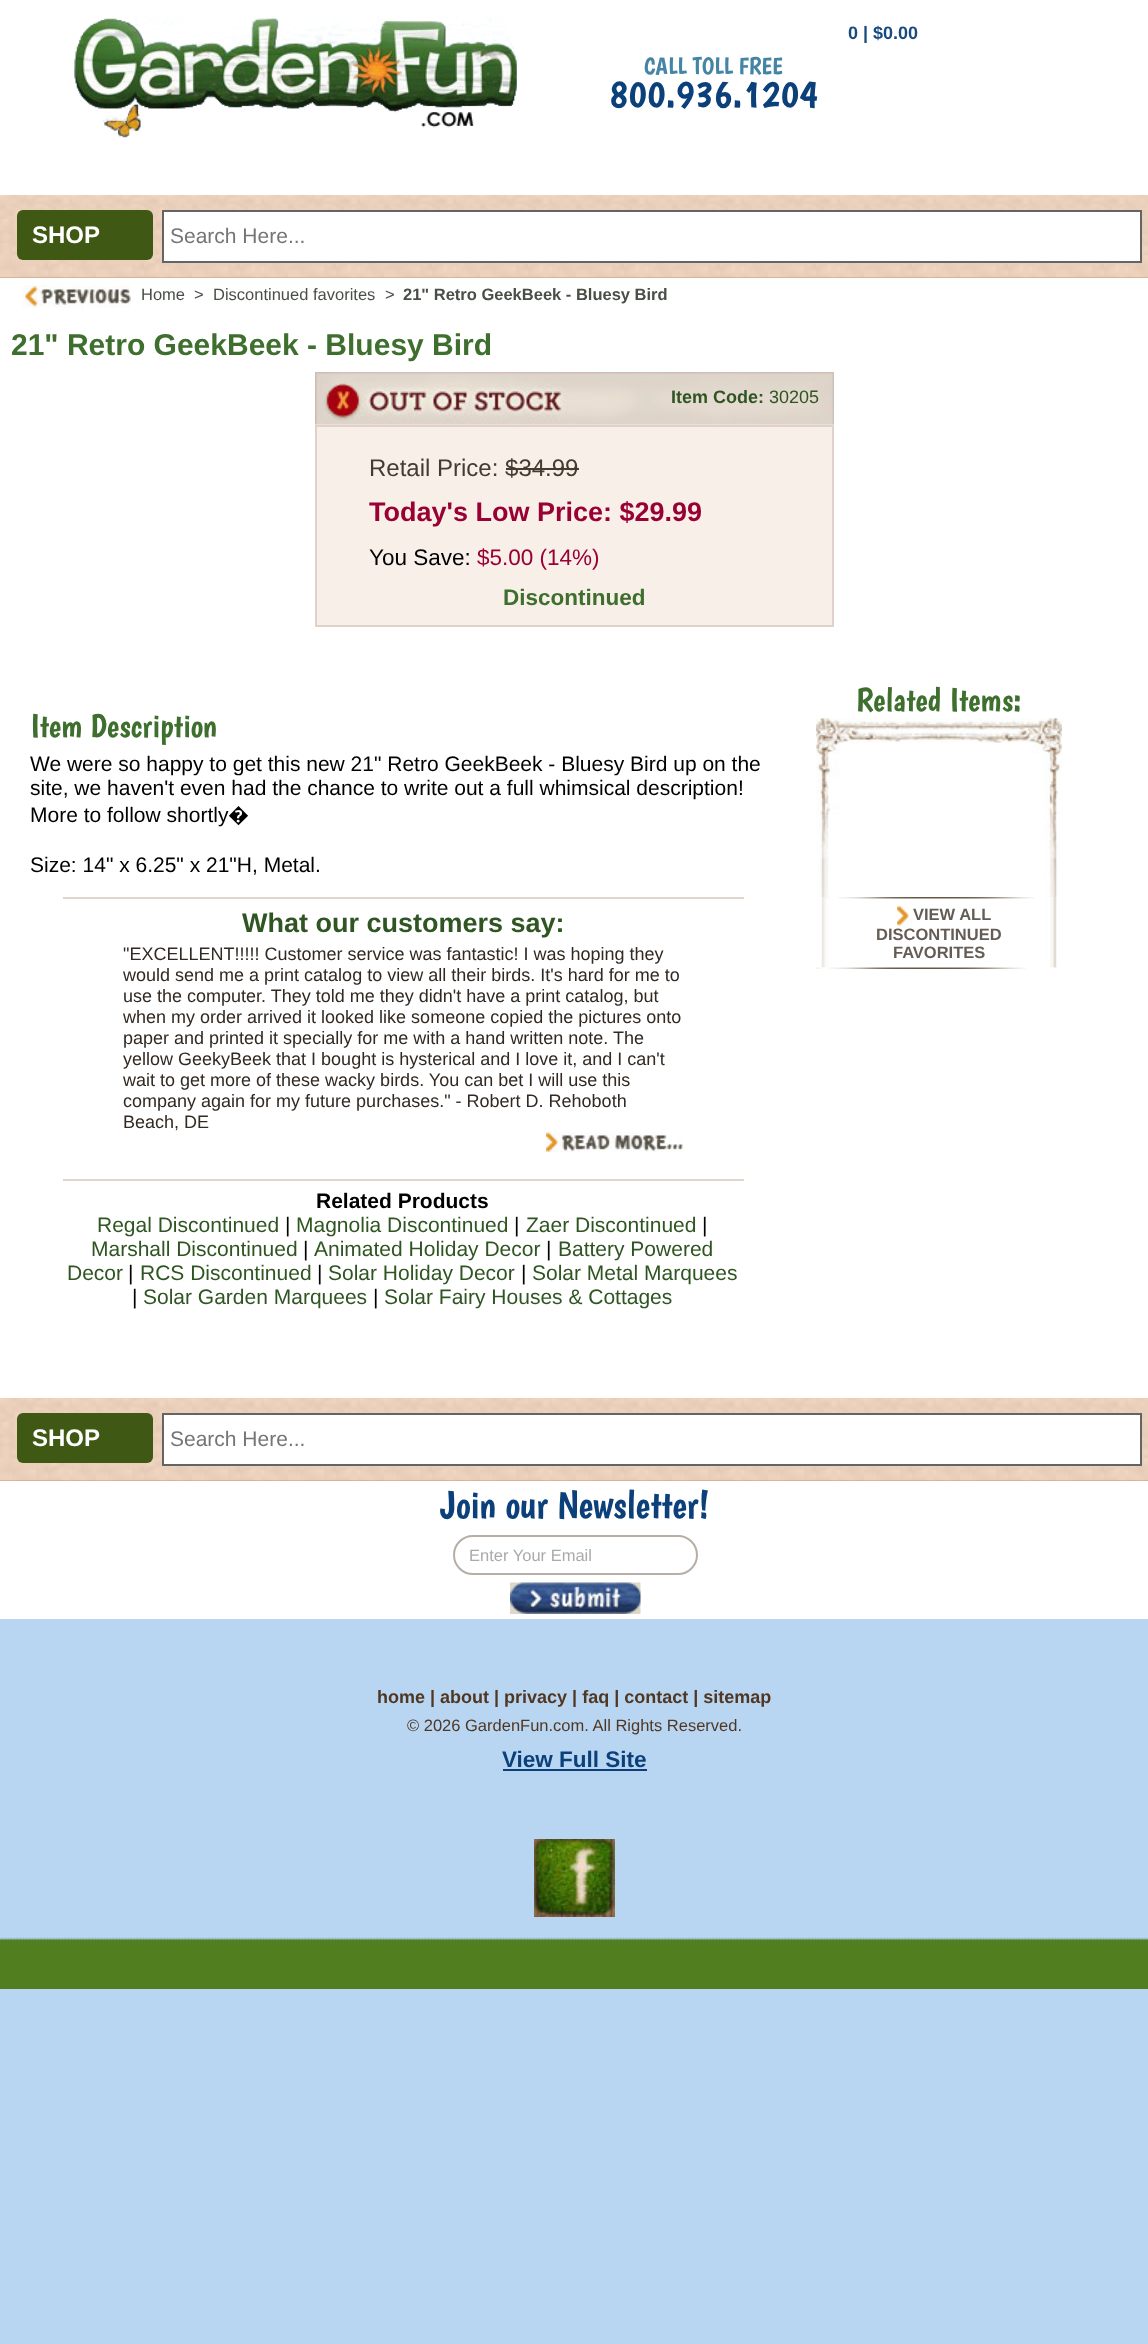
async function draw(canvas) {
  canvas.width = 1148;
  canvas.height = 2344;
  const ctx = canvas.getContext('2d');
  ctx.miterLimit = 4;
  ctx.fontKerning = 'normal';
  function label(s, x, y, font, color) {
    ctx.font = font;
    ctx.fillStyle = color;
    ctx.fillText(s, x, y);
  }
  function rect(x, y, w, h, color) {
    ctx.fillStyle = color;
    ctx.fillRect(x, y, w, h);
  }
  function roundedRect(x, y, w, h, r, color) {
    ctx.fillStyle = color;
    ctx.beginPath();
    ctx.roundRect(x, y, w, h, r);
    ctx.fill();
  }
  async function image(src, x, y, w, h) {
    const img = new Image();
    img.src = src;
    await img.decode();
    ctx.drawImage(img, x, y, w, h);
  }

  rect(0, 0, 1148, 2344, '#b8d6f2');
  rect(0, 0, 1148, 1619, '#fff');
  await image('assets/img1.png', 74, 15, 445, 123);
  label('0 | $0.00', 848, 39, 'bold 18px Liberation Sans', '#174a7f');
  label('CALL TOLL FREE', 644, 74, '24px Boogaloo', '#4584a5');
  label('800.936.1204', 609, 107, '39px Boogaloo', '#0c407a');
  rect(0, 277, 1148, 1, '#c89870');
  await image('assets/img2.png', 0, 195, 1148, 83);
  roundedRect(17, 210, 136, 50, 6, '#3f5814');
  label('SHOP', 32, 243, 'bold 24px Liberation Sans', '#fff');
  ctx.beginPath();
  ctx.rect(163, 211, 978, 51);
  ctx.fill();
  ctx.strokeStyle = '#626466';
  ctx.lineWidth = 2;
  ctx.stroke();
  label('Search Here...', 170, 243, '21px Liberation Sans', '#757575');
  await image('assets/img3.png', 22, 285, 109, 23);
  label('Home', 141, 300, '16.5px Liberation Sans', '#494e47');
  label('>', 194, 300, '16.5px Liberation Sans', '#494e47');
  label('Discontinued favorites', 213, 300, '16.5px Liberation Sans', '#494e47');
  label('>', 385, 300, '16.5px Liberation Sans', '#494e47');
  label('21" Retro GeekBeek - Bluesy Bird', 403, 300, 'bold 16.5px Liberation Sans', '#494e47');
  label('21" Retro GeekBeek - Bluesy Bird', 11, 355, 'bold 30px Liberation Sans', '#3e6f2e');
  rect(315, 424, 519, 201, '#f8efe8');
  await image('assets/img4.png', 315, 372, 519, 53);
  label('Item Code:', 671, 403, 'bold 18px Liberation Sans', '#2f5522');
  label('30205', 769, 403, '18px Liberation Sans', '#2f5522');
  ctx.strokeStyle = '#e0d2c9';
  ctx.strokeRect(316, 426, 517, 200);
  label('Retail Price: $34.99', 369, 476, '24px Liberation Sans', '#453b31');
  rect(506, 468, 73, 2, '#453b31');
  label('Today\'s Low Price: $29.99', 369, 521, 'bold 27px Liberation Sans', '#903');
  label('You Save:', 369, 565, '22.5px Liberation Sans', '#000');
  label('$5.00 (14%)', 477, 565, '22.5px Liberation Sans', '#903');
  label('Discontinued', 503, 605, 'bold 22.5px Liberation Sans', '#3e6f2e');
  label('Item Description', 30, 737, '33px Boogaloo', '#3e6f2e');
  label('We were so happy to get this new 21" Retro GeekBeek - Bluesy Bird up on the', 30, 771, '21px Liberation Sans', '#000');
  label('site, we haven\'t even had the chance to write out a full whimsical description!', 30, 795, '21px Liberation Sans', '#000');
  label('More to follow shortly', 30, 822, '21px Liberation Sans', '#000');
  label('�', 228, 822, '21px Noto Sans', '#000');
  label('Size: 14" x 6.25" x 21"H, Metal.', 30, 872, '21px Liberation Sans', '#000');
  rect(63, 897, 681, 2, '#e2d5cd');
  rect(63, 1179, 681, 2, '#e2d5cd');
  label('What our customers say:', 242, 932, 'bold 27px Liberation Sans', '#2f5522');
  label('"EXCELLENT!!!!! Customer service was fantastic! I was hoping they', 123, 960, '18px Liberation Sans', '#322922');
  label('would send me a print catalog to view all their birds. It\'s hard for me to', 123, 981, '18px Liberation Sans', '#322922');
  label('use the computer. They told me they didn\'t have a print catalog, but', 123, 1002, '18px Liberation Sans', '#322922');
  label('when my order arrived it looked like someone copied the pictures onto', 123, 1023, '18px Liberation Sans', '#322922');
  label('paper and printed it specially for me with a hand written note. The', 123, 1044, '18px Liberation Sans', '#322922');
  label('yellow GeekyBeek that I bought is hysterical and I love it, and I can\'t', 123, 1065, '18px Liberation Sans', '#322922');
  label('wait to get more of these wacky birds. You can bet I will use this', 123, 1086, '18px Liberation Sans', '#322922');
  label('company again for my future purchases." - Robert D. Rehoboth', 123, 1107, '18px Liberation Sans', '#322922');
  label('Beach, DE', 123, 1128, '18px Liberation Sans', '#322922');
  await image('assets/img5.png', 546, 1132, 138, 20);
  label('Related Products', 316, 1208, 'bold 21px Liberation Sans', '#000');
  label('Regal Discontinued', 97, 1232, '21px Liberation Sans', '#2f5522');
  label('|', 285, 1232, '21px Liberation Sans', '#000');
  label('Magnolia Discontinued', 296, 1232, '21px Liberation Sans', '#2f5522');
  label('|', 514, 1232, '21px Liberation Sans', '#000');
  label('Zaer Discontinued', 526, 1232, '21px Liberation Sans', '#2f5522');
  label('|', 702, 1232, '21px Liberation Sans', '#000');
  label('Marshall Discontinued', 91, 1256, '21px Liberation Sans', '#2f5522');
  label('|', 303, 1256, '21px Liberation Sans', '#000');
  label('Animated Holiday Decor', 314, 1256, '21px Liberation Sans', '#2f5522');
  label('|', 546, 1256, '21px Liberation Sans', '#000');
  label('Battery Powered', 558, 1256, '21px Liberation Sans', '#2f5522');
  label('Decor', 67, 1280, '21px Liberation Sans', '#2f5522');
  label('|', 128, 1280, '21px Liberation Sans', '#000');
  label('RCS Discontinued', 140, 1280, '21px Liberation Sans', '#2f5522');
  label('|', 317, 1280, '21px Liberation Sans', '#000');
  label('Solar Holiday Decor', 328, 1280, '21px Liberation Sans', '#2f5522');
  label('|', 521, 1280, '21px Liberation Sans', '#000');
  label('Solar Metal Marquees', 532, 1280, '21px Liberation Sans', '#2f5522');
  label('|', 132, 1304, '21px Liberation Sans', '#000');
  label('Solar Garden Marquees', 143, 1304, '21px Liberation Sans', '#2f5522');
  label('|', 373, 1304, '21px Liberation Sans', '#000');
  label('Solar Fairy Houses & Cottages', 384, 1304, '21px Liberation Sans', '#2f5522');
  label('Related Items:', 856, 711, '33px Boogaloo', '#3e6f2e');
  await image('assets/img6.png', 821, 718, 236, 1);
  await image('assets/img7.png', 816, 718, 246, 179);
  await image('assets/img8.png', 821, 897, 236, 71);
  await image('assets/img9.png', 825, 897, 210, 2);
  await image('assets/img10.png', 897, 906, 12, 20);
  label('VIEW ALL', 913, 920, 'bold 16.5px Liberation Sans', '#645d55');
  label('DISCONTINUED', 876, 940, 'bold 16.5px Liberation Sans', '#645d55');
  label('FAVORITES', 893, 958, 'bold 16.5px Liberation Sans', '#645d55');
  await image('assets/img11.png', 816, 967, 210, 2);
  rect(0, 1480, 1148, 1, '#c89870');
  await image('assets/img12.png', 0, 1398, 1148, 83);
  roundedRect(17, 1413, 136, 50, 6, '#3f5814');
  label('SHOP', 32, 1446, 'bold 24px Liberation Sans', '#fff');
  ctx.beginPath();
  ctx.rect(163, 1414, 978, 51);
  ctx.fill();
  ctx.strokeStyle = '#626466';
  ctx.stroke();
  label('Search Here...', 170, 1446, '21px Liberation Sans', '#757575');
  label('Join our Newsletter!', 440, 1518, '39px Boogaloo', '#0c407a');
  ctx.beginPath();
  ctx.roundRect(454, 1536, 243, 38, 19);
  ctx.strokeStyle = '#b7aea5';
  ctx.stroke();
  label('Enter Your Email', 469, 1561, '16.5px Liberation Sans', '#aaa');
  await image('assets/img13.png', 510, 1582, 131, 32);
  await image('assets/img14.png', 0, 1937, 1148, 52);
  label('home | about | privacy | faq | contact | sitemap', 377, 1703, 'bold 18px Liberation Sans', '#503723');
  label('© 2026 GardenFun.com. All Rights Reserved.', 407, 1731, '16.5px Liberation Sans', '#503723');
  label('View Full Site', 502, 1767, 'bold 22.5px Liberation Sans', '#0c407a');
  rect(503, 1769, 144, 2, '#0b3f79');
  await image('assets/img15.png', 534, 1839, 81, 78);
}

draw(document.querySelector('canvas'));
